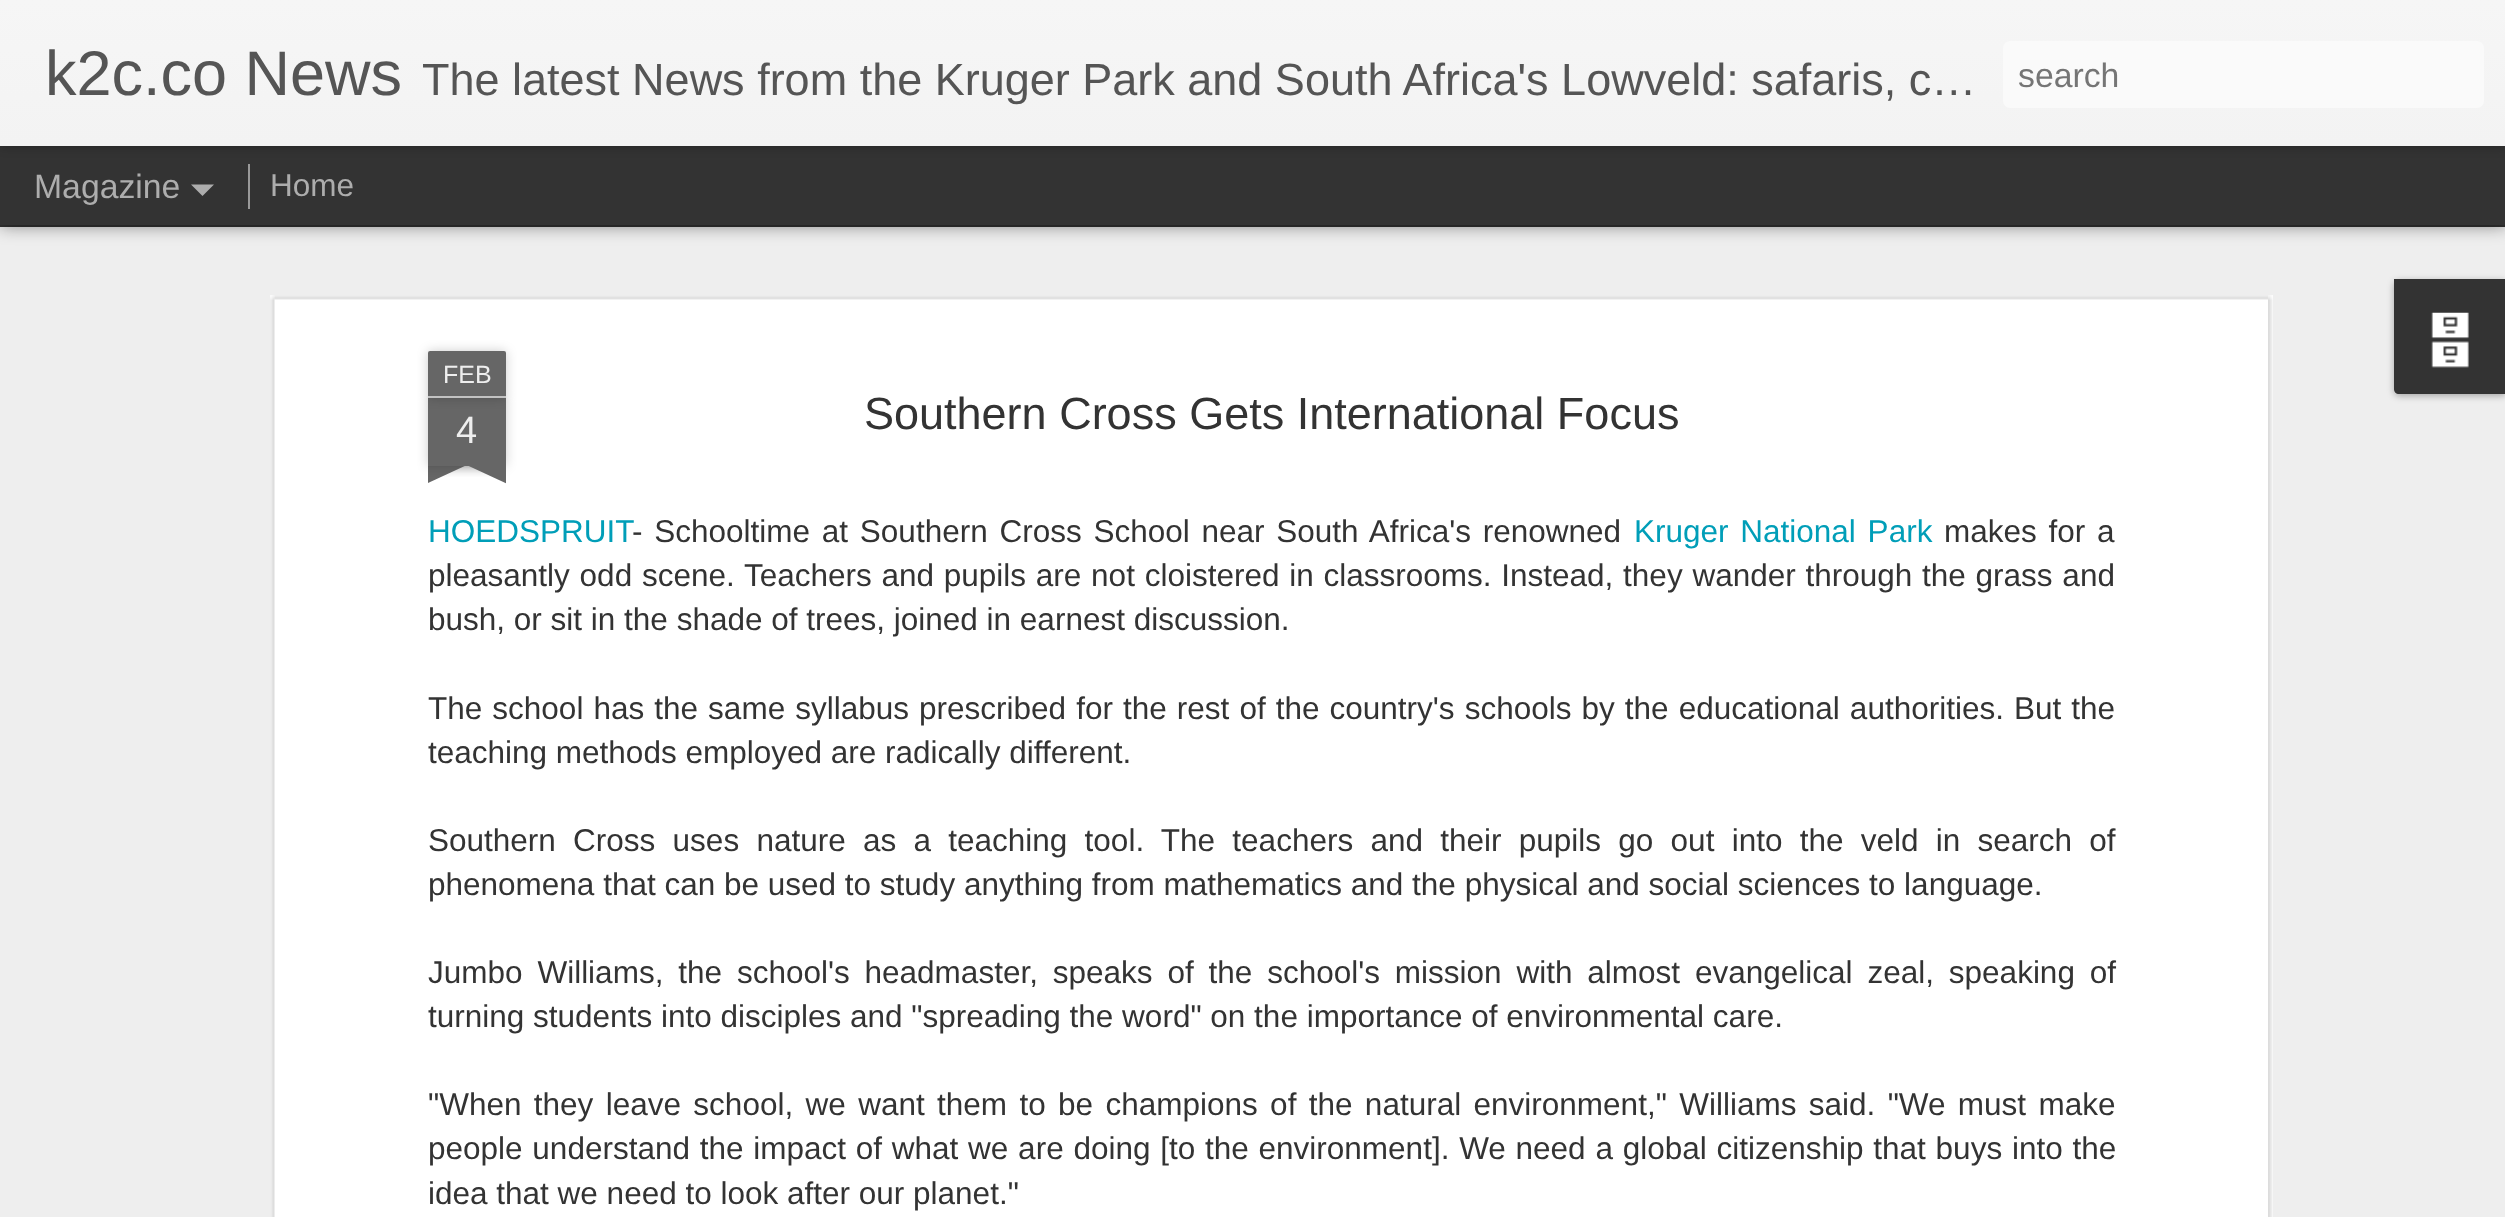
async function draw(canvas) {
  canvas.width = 2505;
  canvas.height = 1217;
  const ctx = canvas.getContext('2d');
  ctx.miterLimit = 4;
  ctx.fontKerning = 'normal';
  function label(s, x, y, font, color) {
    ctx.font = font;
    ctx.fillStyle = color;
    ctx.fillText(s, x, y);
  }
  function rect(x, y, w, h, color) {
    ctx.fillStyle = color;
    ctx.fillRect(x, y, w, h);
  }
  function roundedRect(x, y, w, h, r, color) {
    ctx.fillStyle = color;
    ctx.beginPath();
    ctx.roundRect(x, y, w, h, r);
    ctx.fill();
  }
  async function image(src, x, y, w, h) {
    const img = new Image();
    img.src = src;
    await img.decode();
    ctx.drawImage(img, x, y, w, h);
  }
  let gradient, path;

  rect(0, 0, 2505, 1217, '#333');
  rect(0, 227, 2505, 990, '#eee');
  ctx.fillStyle = '#00000080';
  ctx.filter = 'blur(9px)';
  ctx.beginPath();
  ctx.rect(0, 146, 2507, 79);
  ctx.fill();
  ctx.filter = 'none';
  rect(0, 146, 2505, 79, '#333');
  ctx.fillStyle = '#0000004d';
  ctx.filter = 'blur(5.5px)';
  ctx.beginPath();
  ctx.rect(0, 0, 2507, 146);
  ctx.fill();
  ctx.filter = 'none';
  gradient = ctx.createLinearGradient(0, 0, 0, 146);
  gradient.addColorStop(0, '#f6f6f6');
  gradient.addColorStop(1, '#f3f3f3');
  ctx.fillStyle = gradient;
  ctx.fillRect(0, 0, 2505, 146);
  label('k2c.co News', 45, 95, '63px Liberation Sans', '#555');
  label('The latest News from the Kruger Park and South Africa\'s Lowveld: safaris, c…', 422, 95, '45px Liberation Sans', '#555');
  roundedRect(2003, 41, 481, 67, 7, '#fafafa');
  label('search', 2018, 87, '33.75px Liberation Sans', '#757575');
  label('Magazine', 34, 198, '33.75px Liberation Sans', '#adadad');
  path = new Path2D('M191 184.5H214L202.5 196Z');
  ctx.fill(path);
  rect(248, 164, 2, 45, '#999');
  label('Home', 270, 196, '31.5px Liberation Sans', '#adadad');
  ctx.fillStyle = '#0000004d';
  ctx.filter = 'blur(3.5px)';
  ctx.beginPath();
  ctx.roundRect(2394, 281, 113, 115, 5);
  ctx.fill();
  ctx.filter = 'none';
  ctx.fillStyle = '#333';
  path = new Path2D('M2394 279H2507V394H2399C2396 394 2394 392 2394 389Z');
  ctx.fill(path);
  await image('assets/img1.png', 2431, 312, 38, 56);
  rect(270, 295, 2003, 922, '#fff');
  await image('assets/img2.png', 270, 295, 2003, 922);
  ctx.fillStyle = '#00000033';
  ctx.filter = 'blur(5.5px)';
  ctx.beginPath();
  ctx.rect(428, 398, 78, 68);
  ctx.fill();
  ctx.filter = 'none';
  rect(428, 398, 78, 68, '#666');
  ctx.fillStyle = '#00000033';
  ctx.filter = 'blur(5.5px)';
  ctx.beginPath();
  ctx.roundRect(428, 351, 78, 47, 2);
  ctx.fill();
  ctx.filter = 'none';
  ctx.fillStyle = '#666';
  ctx.beginPath();
  ctx.roundRect(428, 351, 78, 47, [2, 2, 0, 0]);
  ctx.fill();
  rect(428, 396, 78, 2, '#c2c2c2');
  label('FEB', 443, 383, '25px Liberation Sans', '#eee');
  label('4', 456, 443, '38px Liberation Sans', '#eee');
  ctx.save();
  ctx.beginPath();
  ctx.rect(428, 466, 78, 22);
  ctx.clip();
  ctx.fillStyle = '#00000033';
  ctx.filter = 'blur(5.5px)';
  ctx.beginPath();
  ctx.rect(407, 443, 113, 23);
  ctx.fill();
  ctx.filter = 'none';
  ctx.restore();
  ctx.save();
  ctx.beginPath();
  ctx.rect(428, 466, 78, 22);
  ctx.clip();
  ctx.fillStyle = '#666';
  path = new Path2D('M408 468L510 421L519 441L417 488Z');
  ctx.fill(path);
  ctx.restore();
  ctx.save();
  ctx.beginPath();
  ctx.rect(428, 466, 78, 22);
  ctx.clip();
  ctx.fillStyle = '#00000033';
  ctx.filter = 'blur(5.5px)';
  ctx.beginPath();
  ctx.rect(414, 443, 113, 23);
  ctx.fill();
  ctx.filter = 'none';
  ctx.restore();
  ctx.save();
  ctx.beginPath();
  ctx.rect(428, 466, 78, 22);
  ctx.clip();
  ctx.fillStyle = '#666';
  path = new Path2D('M424 421L526 468L516 488L415 441Z');
  ctx.fill(path);
  ctx.restore();
  label('Southern Cross Gets International Focus', 864, 429, '45px Liberation Sans', '#333');
  label('HOEDSPRUIT', 428, 542, '31.5px Liberation Sans', '#009eb8');
  ctx.wordSpacing = '3px';
  label('- Schooltime at Southern Cross School near South Africa\'s renowned', 632, 542, '31.5px Liberation Sans', '#333');
  label('Kruger National Park', 1634, 542, '31.5px Liberation Sans', '#009eb8');
  label('makes for a', 1944, 542, '31.5px Liberation Sans', '#333');
  ctx.wordSpacing = '1px';
  label('pleasantly odd scene. Teachers and pupils are not cloistered in classrooms. Instead, they wander through the grass and', 428, 586, '31.5px Liberation Sans', '#333');
  ctx.wordSpacing = '0px';
  label('bush, or sit in the shade of trees, joined in earnest discussion.', 428, 630, '31.5px Liberation Sans', '#333');
  ctx.wordSpacing = '1.3px';
  label('The school has the same syllabus prescribed for the rest of the country\'s schools by the educational authorities. But the', 428, 719, '31.5px Liberation Sans', '#333');
  ctx.wordSpacing = '0px';
  label('teaching methods employed are radically different.', 428, 763, '31.5px Liberation Sans', '#333');
  ctx.wordSpacing = '8.5px';
  label('Southern Cross uses nature as a teaching tool. The teachers and their pupils go out into the veld in search of', 428, 851, '31.5px Liberation Sans', '#333');
  ctx.wordSpacing = '0px';
  label('phenomena that can be used to study anything from mathematics and the physical and social sciences to language.', 428, 895, '31.5px Liberation Sans', '#333');
  ctx.wordSpacing = '6.1px';
  label('Jumbo Williams, the school\'s headmaster, speaks of the school\'s mission with almost evangelical zeal, speaking of', 428, 983, '31.5px Liberation Sans', '#333');
  ctx.wordSpacing = '0px';
  label('turning students into disciples and "spreading the word" on the importance of environmental care.', 428, 1027, '31.5px Liberation Sans', '#333');
  ctx.wordSpacing = '3.6px';
  label('"When they leave school, we want them to be champions of the natural environment," Williams said. "We must make', 428, 1115, '31.5px Liberation Sans', '#333');
  ctx.wordSpacing = '1px';
  label('people understand the impact of what we are doing [to the environment]. We need a global citizenship that buys into the', 428, 1159, '31.5px Liberation Sans', '#333');
  ctx.wordSpacing = '0px';
  label('idea that we need to look after our planet."', 428, 1204, '31.5px Liberation Sans', '#333');
}

draw(document.querySelector('canvas'));
